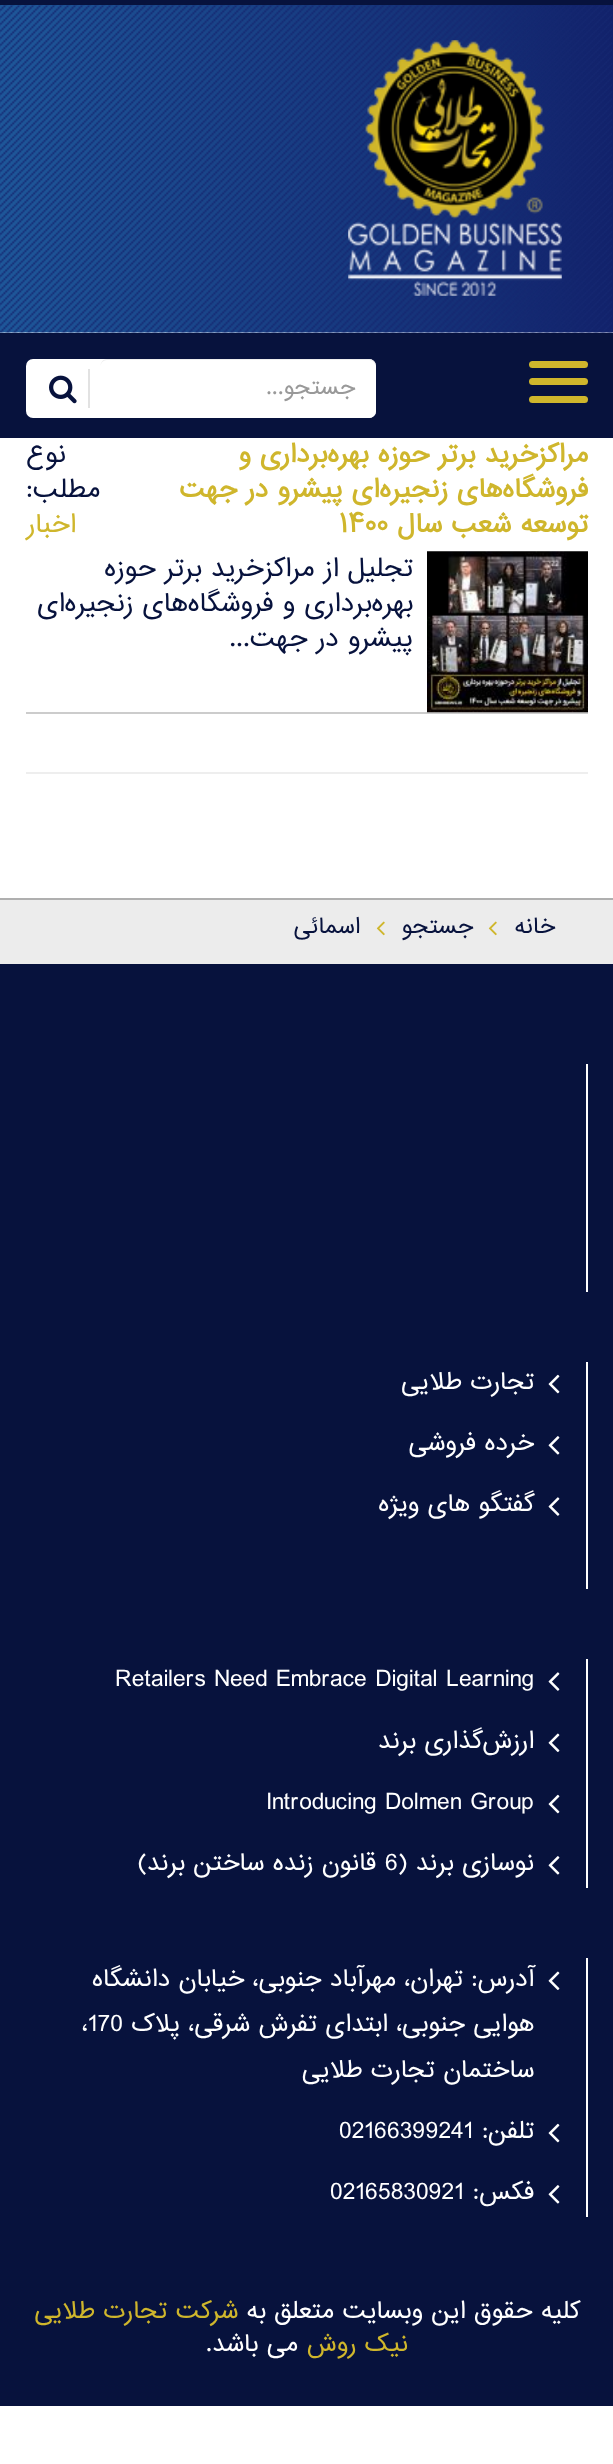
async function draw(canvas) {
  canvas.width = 613;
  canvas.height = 2464;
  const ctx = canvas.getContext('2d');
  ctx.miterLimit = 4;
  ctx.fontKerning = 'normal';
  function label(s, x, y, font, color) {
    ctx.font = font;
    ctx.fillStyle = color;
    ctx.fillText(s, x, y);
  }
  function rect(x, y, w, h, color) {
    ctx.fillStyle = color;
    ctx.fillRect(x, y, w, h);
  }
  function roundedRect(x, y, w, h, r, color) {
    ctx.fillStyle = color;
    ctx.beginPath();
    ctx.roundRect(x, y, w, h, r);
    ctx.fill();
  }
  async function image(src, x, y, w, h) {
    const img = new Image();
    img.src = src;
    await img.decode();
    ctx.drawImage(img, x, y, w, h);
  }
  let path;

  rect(0, 0, 613, 2464, '#fff');
  await image('assets/img1.png', 0, 5, 613, 328);
  rect(0, 0, 613, 5, '#07123d');
  await image('assets/img2.png', 0, 5, 612, 328);
  await image('assets/img3.png', 348, 40, 214, 256);
  rect(0, 333, 613, 105, '#07123d');
  roundedRect(529, 378, 59, 7, 3.5, '#cfb62c');
  roundedRect(529, 361, 59, 7, 3.5, '#cfb62c');
  roundedRect(529, 396, 59, 7, 3.5, '#cfb62c');
  roundedRect(26, 359, 350, 59, 7, '#fff');
  roundedRect(100, 359, 276, 59, 7, '#fff');
  ctx.fillStyle = '#00000012';
  path = new Path2D('M107 360C103 360 100 364 100 368C100 364 102 359 107 359H370C375 360 376 364 376 368C376 364 373 360 369 360Z');
  ctx.fill(path);
  ctx.direction = 'rtl';
  label('جستجو...', 355, 394, '21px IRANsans', '#999');
  rect(88, 369, 2, 39, '#e2e2e2');
  await image('assets/img4.png', 49, 375, 28, 29);
  rect(26, 712, 562, 2, '#ccc');
  label('مراکزخرید برتر حوزه بهره‌برداری و', 588, 462, 'bold 24.5px IRANsans', '#cfb62c');
  label('فروشگاه‌های زنجیره‌ای پیشرو در جهت', 588, 497, 'bold 24.5px IRANsans', '#cfb62c');
  label('توسعه شعب سال', 588, 532, 'bold 24.5px IRANsans', '#cfb62c');
  ctx.direction = 'ltr';
  label('۱۴۰۰', 339, 532, 'bold 24.5px IRANsans', '#cfb62c');
  ctx.direction = 'rtl';
  label('نوع', 66, 462, '24.5px IRANsans', '#07123d');
  label('مطلب:', 100, 497, '24.5px IRANsans', '#07123d');
  label('اخبار', 76, 532, '24.5px IRANsans', '#cfb62c');
  await image('assets/img5.png', 427, 551, 161, 162);
  label('تجلیل از مراکزخرید برتر حوزه', 413, 576, '24.5px IRANsans', '#07123d');
  label('بهره‌برداری و فروشگاه‌های زنجیره‌ای', 413, 611, '24.5px IRANsans', '#07123d');
  label('پیشرو در جهت...', 413, 646, '24.5px IRANsans', '#07123d');
  rect(26, 772, 562, 2, '#eee');
  rect(0, 900, 613, 64, '#ececec');
  rect(0, 898, 613, 2, '#afafaf');
  label('خانه', 555, 933, '21px IRANsans', '#07123d');
  await image('assets/img6.png', 488, 921, 9, 15);
  label('جستجو', 473, 933, '21px IRANsans', '#07123d');
  await image('assets/img6.png', 376, 921, 9, 15);
  label('اسمائی', 360, 933, '21px IRANsans', '#07123d');
  rect(0, 964, 613, 1442, '#07123d');
  rect(586, 1064, 2, 228, '#fff');
  rect(586, 1362, 2, 227, '#fff');
  await image('assets/img7.png', 548, 1374, 12, 20);
  label('تجارت طلایی', 534, 1389, '22.75px IRANsans', '#fff');
  await image('assets/img8.png', 548, 1436, 12, 19);
  label('خرده فروشی', 534, 1450, '22.75px IRANsans', '#fff');
  await image('assets/img9.png', 548, 1497, 12, 19);
  label('گفتگو های ویژه', 534, 1511, '22.75px IRANsans', '#fff');
  rect(586, 1659, 2, 229, '#fff');
  await image('assets/img9.png', 548, 1672, 12, 19);
  ctx.direction = 'ltr';
  label('Retailers Need Embrace Digital Learning', 115, 1686, '22.75px IRANsans', '#fff');
  await image('assets/img10.png', 548, 1733, 12, 19);
  ctx.direction = 'rtl';
  label('ارزش‌گذاری برند', 534, 1748, '22.75px IRANsans', '#fff');
  await image('assets/img7.png', 548, 1794, 12, 20);
  ctx.direction = 'ltr';
  label('Introducing Dolmen Group', 266, 1809, '22.75px IRANsans', '#fff');
  await image('assets/img8.png', 548, 1856, 12, 19);
  ctx.direction = 'rtl';
  label('نوسازی برند (', 534, 1870, '22.75px IRANsans', '#fff');
  ctx.direction = 'ltr';
  label('6', 385, 1870, '22.75px IRANsans', '#fff');
  ctx.direction = 'rtl';
  label('قانون زنده ساختن برند)', 376, 1870, '22.75px IRANsans', '#fff');
  rect(586, 1958, 2, 259, '#fff');
  await image('assets/img10.png', 548, 1971, 12, 19);
  label('آدرس: تهران، مهرآباد جنوبی، خیابان دانشگاه', 534, 1986, '22.75px IRANsans', '#fff');
  label('هوایی جنوبی، ابتدای تفرش شرقی، پلاک', 534, 2031, '22.75px IRANsans', '#fff');
  ctx.direction = 'ltr';
  label('،170', 82, 2031, '22.75px IRANsans', '#fff');
  ctx.direction = 'rtl';
  label('ساختمان تجارت طلایی', 534, 2077, '22.75px IRANsans', '#fff');
  await image('assets/img7.png', 548, 2123, 12, 20);
  label('تلفن:', 534, 2138, '22.75px IRANsans', '#fff');
  ctx.direction = 'ltr';
  label('02166399241', 339, 2138, '22.75px IRANsans', '#fff');
  await image('assets/img8.png', 548, 2185, 12, 19);
  ctx.direction = 'rtl';
  label('فکس:', 534, 2199, '22.75px IRANsans', '#fff');
  ctx.direction = 'ltr';
  label('02165830921', 330, 2199, '22.75px IRANsans', '#fff');
  ctx.direction = 'rtl';
  label('کلیه حقوق این وبسایت متعلق به', 580, 2318, '22.75px IRANsans', '#fff');
  label('شرکت تجارت طلایی', 238, 2318, '22.75px IRANsans', '#cfb62c');
  label('نیک روش', 408, 2351, '22.75px IRANsans', '#cfb62c');
  label('می باشد.', 298, 2351, '22.75px IRANsans', '#fff');
}

draw(document.querySelector('canvas'));
